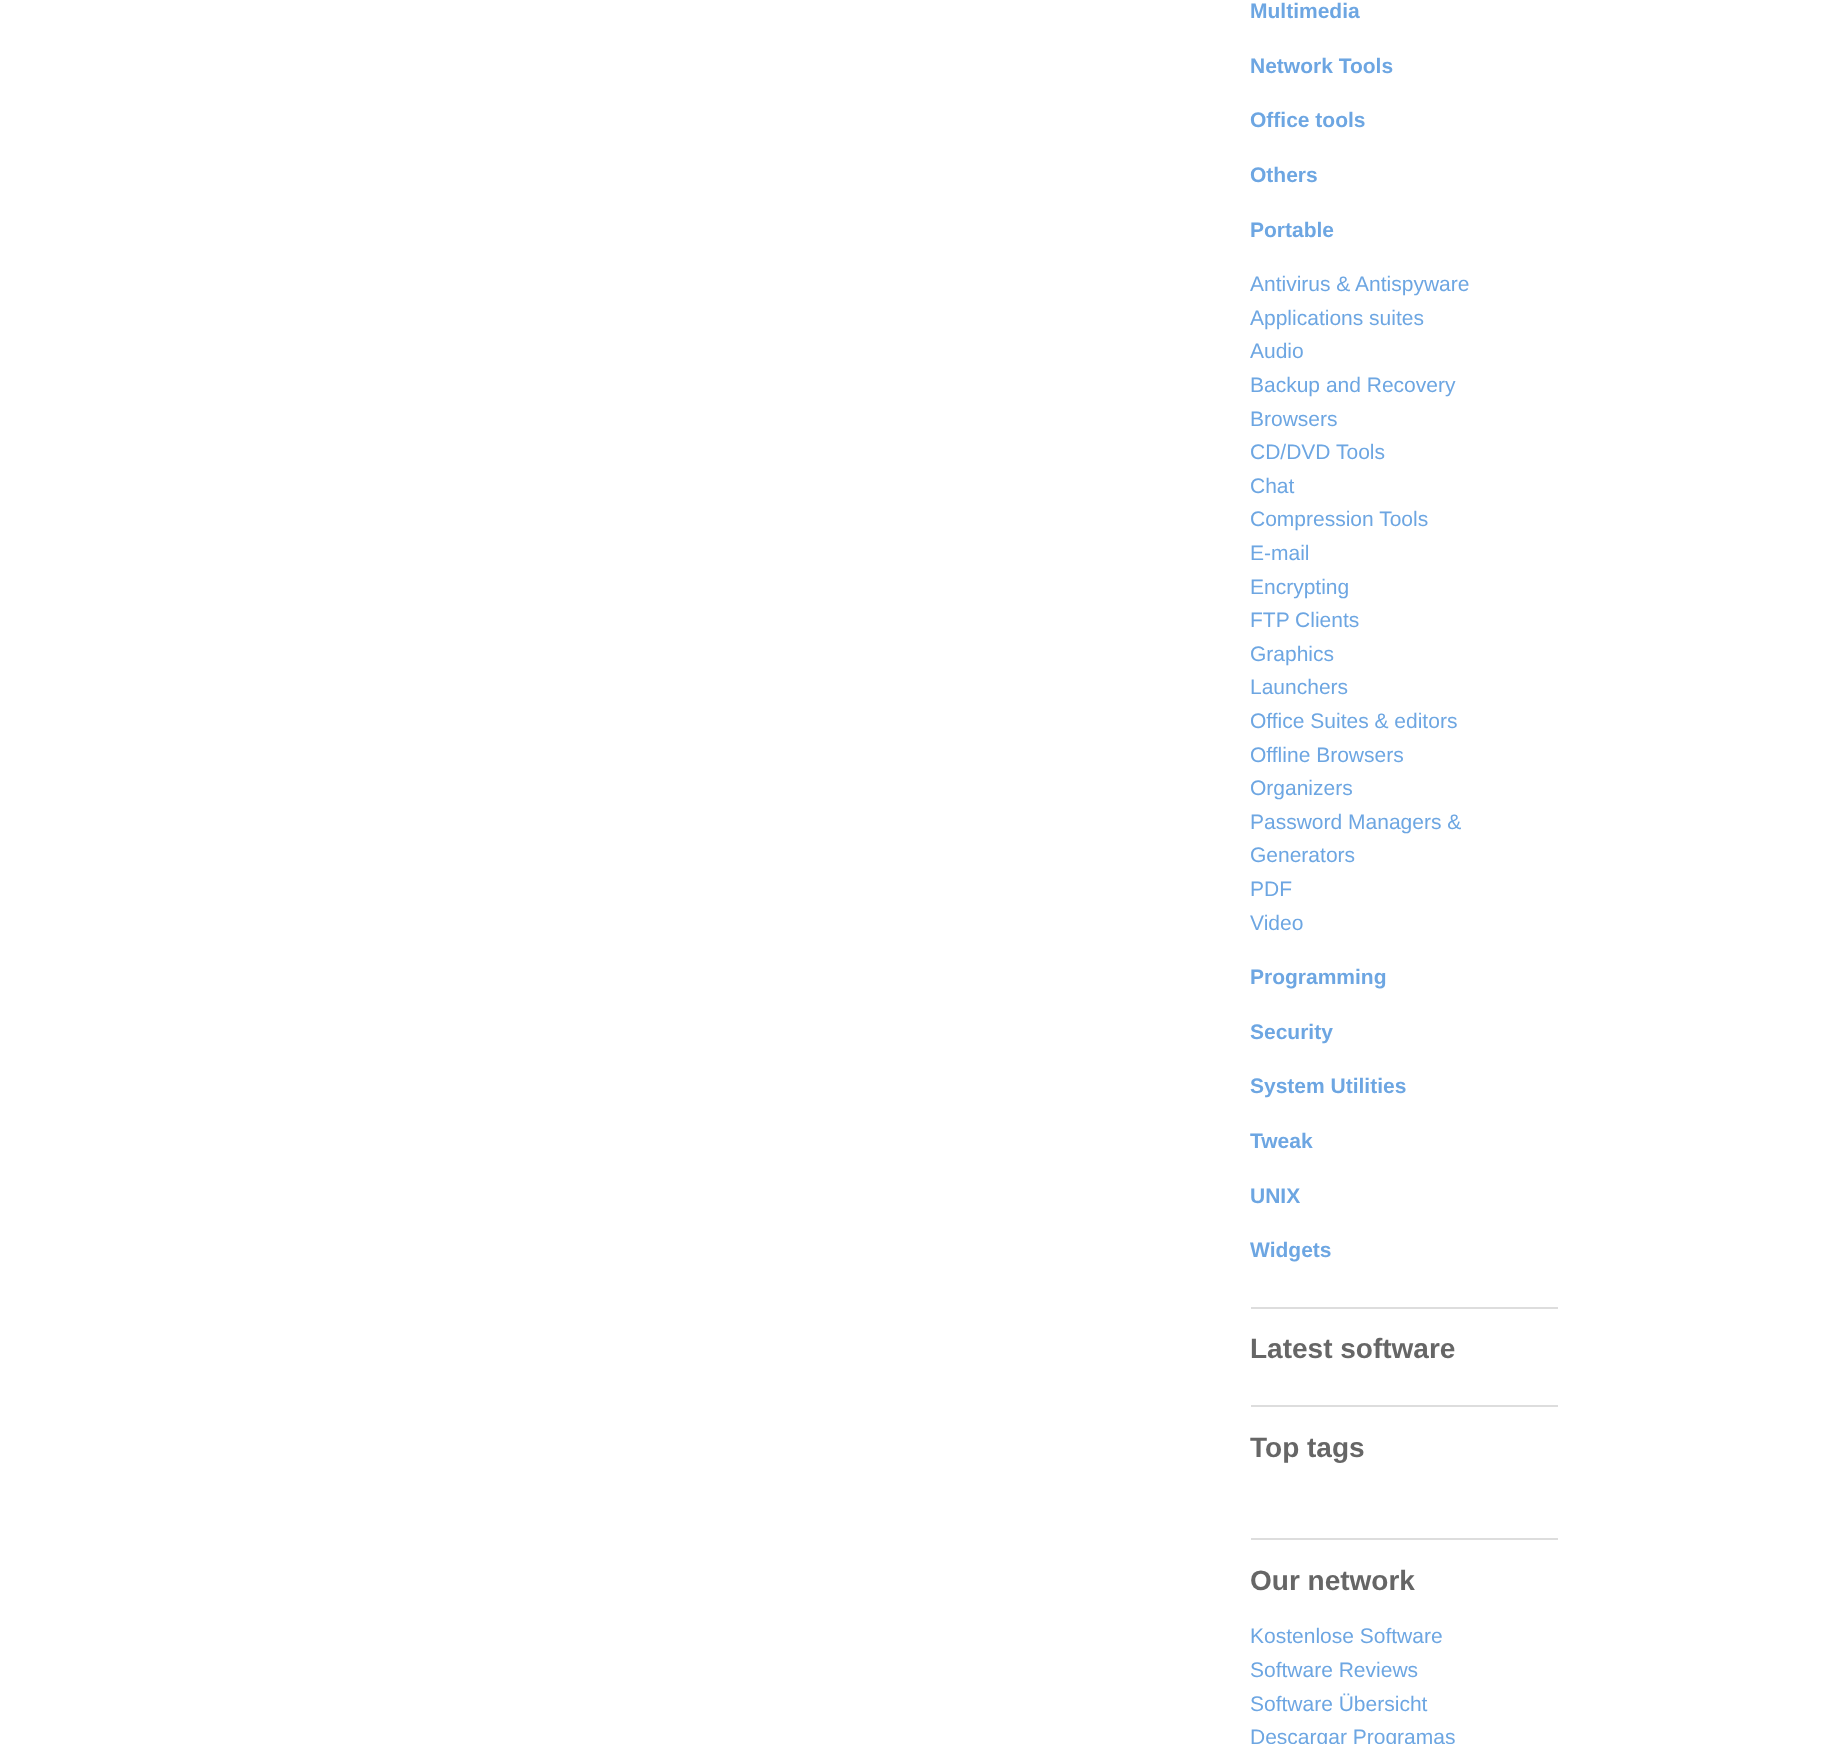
async function draw(canvas) {
  canvas.width = 1842;
  canvas.height = 1744;
  const ctx = canvas.getContext('2d');
  ctx.miterLimit = 4;
  ctx.fontKerning = 'normal';
  function label(s, x, y, font, color) {
    ctx.font = font;
    ctx.fillStyle = color;
    ctx.fillText(s, x, y);
  }
  function rect(x, y, w, h, color) {
    ctx.fillStyle = color;
    ctx.fillRect(x, y, w, h);
  }

  rect(0, 0, 1842, 1744, '#fff');
  label('Multimedia', 1250, 18, 'bold 21px Liberation Sans', '#6da6e2');
  label('Network Tools', 1250, 73, 'bold 21px Liberation Sans', '#6da6e2');
  label('Office tools', 1250, 127, 'bold 21px Liberation Sans', '#6da6e2');
  label('Others', 1250, 182, 'bold 21px Liberation Sans', '#6da6e2');
  label('Portable', 1250, 237, 'bold 21px Liberation Sans', '#6da6e2');
  label('Antivirus & Antispyware', 1250, 291, '21px Liberation Sans', '#6da6e2');
  label('Applications suites', 1250, 325, '21px Liberation Sans', '#6da6e2');
  label('Audio', 1250, 358, '21px Liberation Sans', '#6da6e2');
  label('Backup and Recovery', 1250, 392, '21px Liberation Sans', '#6da6e2');
  label('Browsers', 1250, 426, '21px Liberation Sans', '#6da6e2');
  label('CD/DVD Tools', 1250, 459, '21px Liberation Sans', '#6da6e2');
  label('Chat', 1250, 493, '21px Liberation Sans', '#6da6e2');
  label('Compression Tools', 1250, 526, '21px Liberation Sans', '#6da6e2');
  label('E-mail', 1250, 560, '21px Liberation Sans', '#6da6e2');
  label('Encrypting', 1250, 594, '21px Liberation Sans', '#6da6e2');
  label('FTP Clients', 1250, 627, '21px Liberation Sans', '#6da6e2');
  label('Graphics', 1250, 661, '21px Liberation Sans', '#6da6e2');
  label('Launchers', 1250, 694, '21px Liberation Sans', '#6da6e2');
  label('Office Suites & editors', 1250, 728, '21px Liberation Sans', '#6da6e2');
  label('Offline Browsers', 1250, 762, '21px Liberation Sans', '#6da6e2');
  label('Organizers', 1250, 795, '21px Liberation Sans', '#6da6e2');
  label('Password Managers &', 1250, 829, '21px Liberation Sans', '#6da6e2');
  label('Generators', 1250, 862, '21px Liberation Sans', '#6da6e2');
  label('PDF', 1250, 896, '21px Liberation Sans', '#6da6e2');
  label('Video', 1250, 930, '21px Liberation Sans', '#6da6e2');
  label('Programming', 1250, 984, 'bold 21px Liberation Sans', '#6da6e2');
  label('Security', 1250, 1039, 'bold 21px Liberation Sans', '#6da6e2');
  label('System Utilities', 1250, 1093, 'bold 21px Liberation Sans', '#6da6e2');
  label('Tweak', 1250, 1148, 'bold 21px Liberation Sans', '#6da6e2');
  label('UNIX', 1250, 1203, 'bold 21px Liberation Sans', '#6da6e2');
  label('Widgets', 1250, 1257, 'bold 21px Liberation Sans', '#6da6e2');
  rect(1251, 1307, 307, 2, '#ddd');
  label('Latest software', 1250, 1358, 'bold 28px Liberation Sans', '#666');
  rect(1251, 1405, 307, 2, '#ddd');
  label('Top tags', 1250, 1457, 'bold 28px Liberation Sans', '#666');
  rect(1251, 1538, 307, 2, '#ddd');
  label('Our network', 1250, 1590, 'bold 28px Liberation Sans', '#666');
  label('Kostenlose Software', 1250, 1643, '21px Liberation Sans', '#6da6e2');
  label('Software Reviews', 1250, 1677, '21px Liberation Sans', '#6da6e2');
  label('Software Übersicht', 1250, 1711, '21px Liberation Sans', '#6da6e2');
  label('Descargar Programas', 1250, 1744, '21px Liberation Sans', '#6da6e2');
}

draw(document.querySelector('canvas'));
